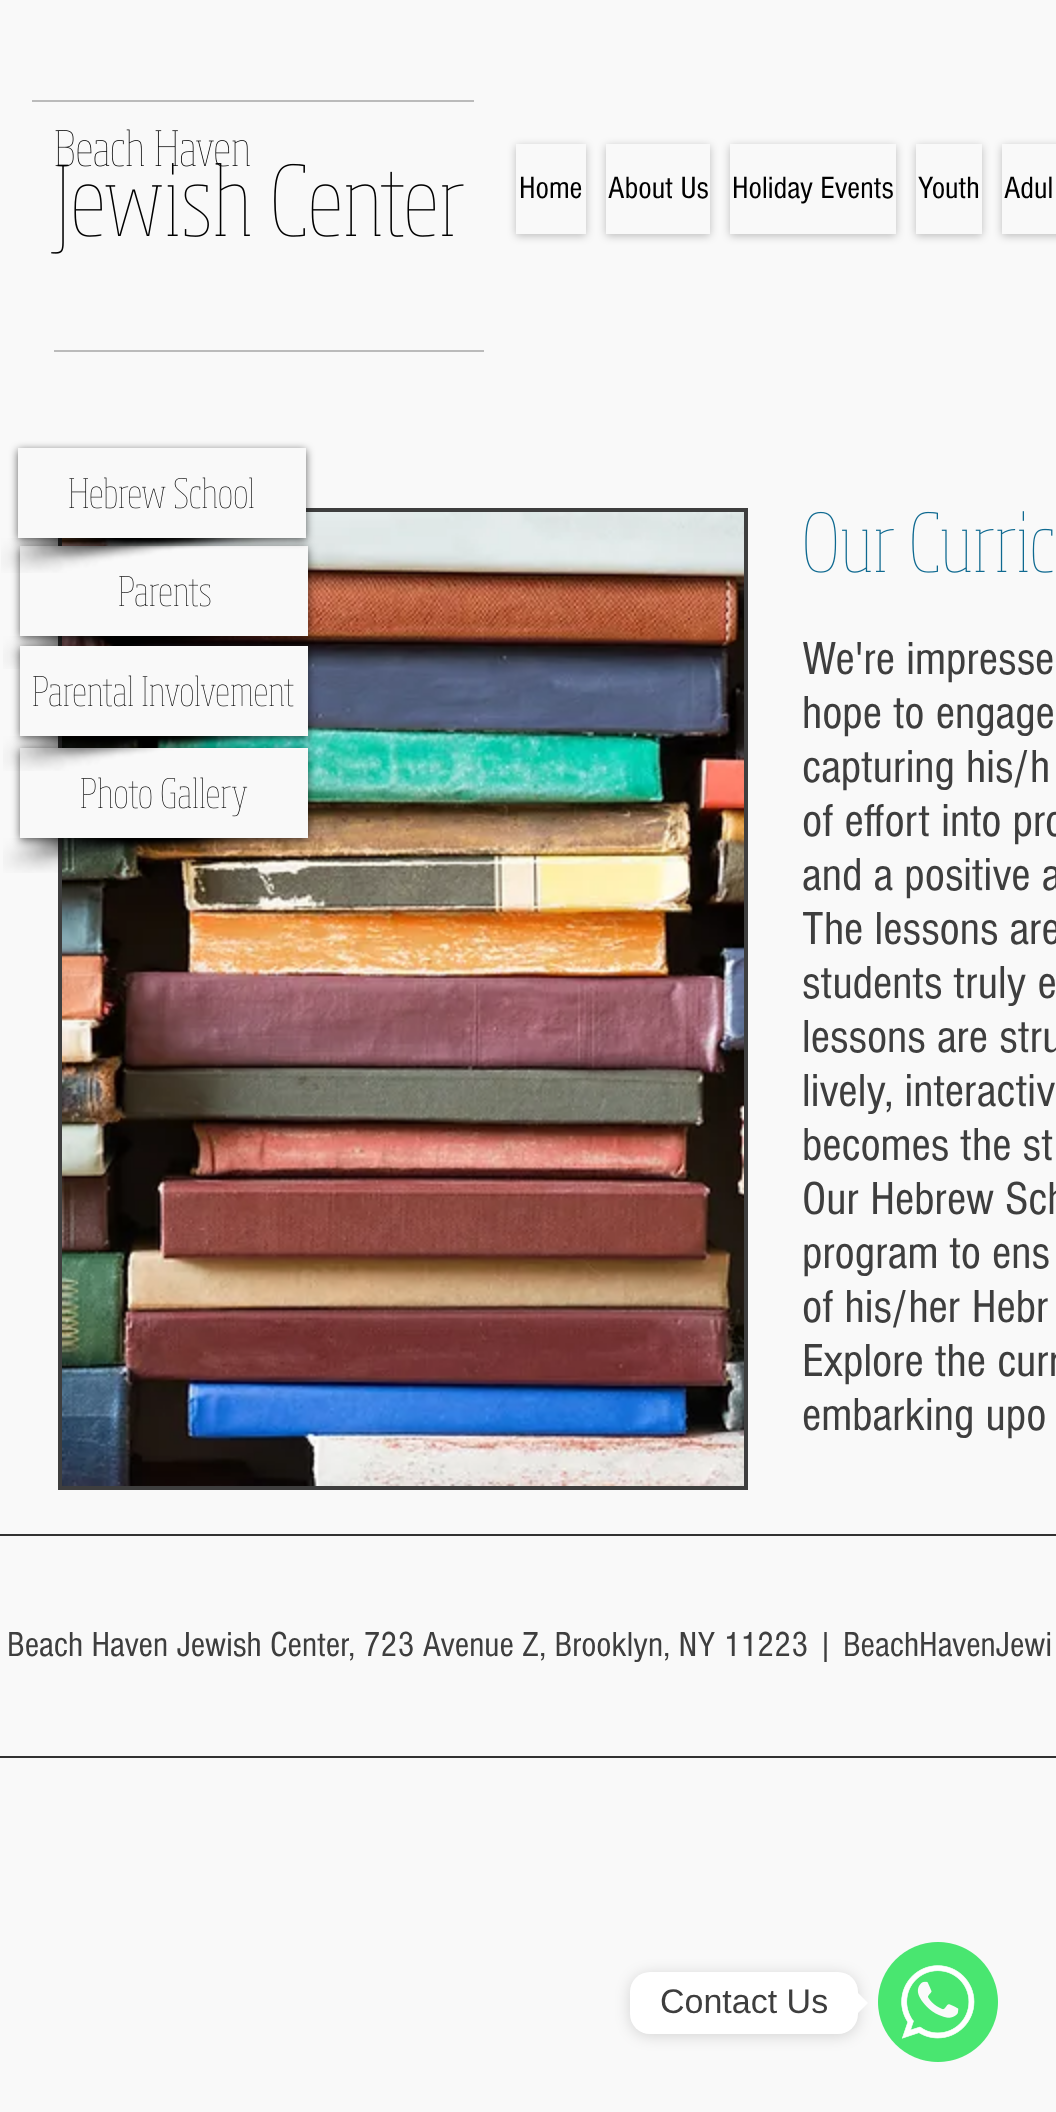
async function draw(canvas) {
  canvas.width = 1056;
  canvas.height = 2112;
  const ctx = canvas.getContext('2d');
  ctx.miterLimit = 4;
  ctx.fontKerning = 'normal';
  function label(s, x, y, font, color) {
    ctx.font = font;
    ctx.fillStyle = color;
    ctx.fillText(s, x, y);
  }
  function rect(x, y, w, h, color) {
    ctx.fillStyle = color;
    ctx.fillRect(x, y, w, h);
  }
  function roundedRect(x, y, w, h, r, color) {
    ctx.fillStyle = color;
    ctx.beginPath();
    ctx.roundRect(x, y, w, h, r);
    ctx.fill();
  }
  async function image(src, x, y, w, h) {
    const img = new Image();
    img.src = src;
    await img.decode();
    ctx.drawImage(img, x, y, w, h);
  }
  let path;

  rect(0, 0, 1056, 2112, '#f9f9f9');
  rect(32, 100, 442, 2, '#bbb');
  await image('assets/img1.png', 55, 129, 195, 38);
  await image('assets/img2.png', 51, 163, 413, 91);
  ctx.save();
  path = new Path2D('M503 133H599V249H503ZM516 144H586V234H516Z');
  ctx.clip(path, 'evenodd');
  ctx.fillStyle = '#0000003d';
  ctx.filter = 'blur(4px)';
  ctx.beginPath();
  ctx.rect(516, 146, 70, 90);
  ctx.fill();
  ctx.filter = 'none';
  ctx.restore();
  label('Home', 519, 198, '32px "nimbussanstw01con"', '#000');
  ctx.save();
  path = new Path2D('M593 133H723V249H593ZM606 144H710V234H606Z');
  ctx.clip(path, 'evenodd');
  ctx.fillStyle = '#0000003d';
  ctx.filter = 'blur(4px)';
  ctx.beginPath();
  ctx.rect(606, 146, 104, 90);
  ctx.fill();
  ctx.filter = 'none';
  ctx.restore();
  label('About Us', 608, 198, '32px "nimbussanstw01con"', '#000');
  ctx.save();
  path = new Path2D('M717 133H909V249H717ZM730 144H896V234H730Z');
  ctx.clip(path, 'evenodd');
  ctx.fillStyle = '#0000003d';
  ctx.filter = 'blur(4px)';
  ctx.beginPath();
  ctx.rect(730, 146, 166, 90);
  ctx.fill();
  ctx.filter = 'none';
  ctx.restore();
  label('Holiday Events', 732, 198, '32px "nimbussanstw01con"', '#000');
  ctx.save();
  path = new Path2D('M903 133H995V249H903ZM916 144H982V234H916Z');
  ctx.clip(path, 'evenodd');
  ctx.fillStyle = '#0000003d';
  ctx.filter = 'blur(4px)';
  ctx.beginPath();
  ctx.rect(916, 146, 66, 90);
  ctx.fill();
  ctx.filter = 'none';
  ctx.restore();
  label('Youth', 918, 198, '32px "nimbussanstw01con"', '#000');
  ctx.save();
  path = new Path2D('M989 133H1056V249H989ZM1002 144H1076V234H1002Z');
  ctx.clip(path, 'evenodd');
  ctx.fillStyle = '#0000003d';
  ctx.filter = 'blur(4px)';
  ctx.beginPath();
  ctx.rect(1002, 146, 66, 90);
  ctx.fill();
  ctx.filter = 'none';
  ctx.restore();
  label('Adul', 1004, 198, '32px "nimbussanstw01con"', '#000');
  rect(54, 350, 430, 2, '#bbb');
  rect(58, 508, 690, 982, '#3e3e3e');
  await image('assets/img5.png', 62, 512, 682, 974);
  await image('assets/img7.png', 3, 636, 286, 33);
  ctx.fillStyle = '#00000099';
  ctx.filter = 'blur(4px)';
  ctx.beginPath();
  ctx.rect(20, 548, 288, 90);
  ctx.fill();
  ctx.filter = 'none';
  rect(20, 546, 288, 90, '#f9f9f9');
  await image('assets/img4.png', 1, 538, 307, 35);
  ctx.fillStyle = '#00000099';
  ctx.filter = 'blur(4px)';
  ctx.beginPath();
  ctx.rect(18, 450, 288, 90);
  ctx.fill();
  ctx.filter = 'none';
  rect(18, 448, 288, 90, '#f9f9f9');
  await image('assets/img3.png', 69, 477, 185, 32);
  await image('assets/img6.png', 119, 576, 92, 31);
  await image('assets/img12.png', 3, 838, 307, 35);
  ctx.fillStyle = '#00000099';
  ctx.filter = 'blur(4px)';
  ctx.beginPath();
  ctx.rect(20, 750, 288, 90);
  ctx.fill();
  ctx.filter = 'none';
  rect(20, 748, 288, 90, '#f9f9f9');
  await image('assets/img9.png', 3, 736, 307, 35);
  ctx.fillStyle = '#00000099';
  ctx.filter = 'blur(4px)';
  ctx.beginPath();
  ctx.rect(20, 648, 288, 90);
  ctx.fill();
  ctx.filter = 'none';
  rect(20, 646, 288, 90, '#f9f9f9');
  await image('assets/img8.png', 33, 675, 261, 32);
  await image('assets/img10.png', 805, 511, 248, 62);
  label('We\'re impresse', 802, 674, '48px "nimbussanstw01con"', '#3e3e3e');
  label('hope to engage', 802, 728, '48px "nimbussanstw01con"', '#3e3e3e');
  label('capturing his/h', 802, 782, '48px "nimbussanstw01con"', '#3e3e3e');
  label('of effort into pro', 802, 836, '48px "nimbussanstw01con"', '#3e3e3e');
  label('and a positive a', 802, 890, '48px "nimbussanstw01con"', '#3e3e3e');
  label('The lessons are', 802, 944, '48px "nimbussanstw01con"', '#3e3e3e');
  label('students truly e', 802, 998, '48px "nimbussanstw01con"', '#3e3e3e');
  label('lessons are stru', 802, 1052, '48px "nimbussanstw01con"', '#3e3e3e');
  label('lively, interactiv', 802, 1106, '48px "nimbussanstw01con"', '#3e3e3e');
  label('becomes the st', 802, 1160, '48px "nimbussanstw01con"', '#3e3e3e');
  label('Our Hebrew Sch', 802, 1214, '48px "nimbussanstw01con"', '#3e3e3e');
  label('program to ens', 802, 1268, '48px "nimbussanstw01con"', '#3e3e3e');
  label('of his/her Hebr', 802, 1322, '48px "nimbussanstw01con"', '#3e3e3e');
  label('Explore the curr', 802, 1376, '48px "nimbussanstw01con"', '#3e3e3e');
  label('embarking upo', 802, 1430, '48px "nimbussanstw01con"', '#3e3e3e');
  await image('assets/img11.png', 81, 777, 167, 40);
  rect(0, 1534, 1056, 2, '#323232');
  rect(0, 1756, 1056, 2, '#323232');
  label('Beach Haven Jewish Center, 723 Avenue Z, Brooklyn, NY 11223 | BeachHavenJewi', 7, 1656, '36px "nimbussanstw01con"', '#3e3e3e');
  await image('assets/img13.png', 878, 1942, 120, 120);
  ctx.fillStyle = '#00000026';
  ctx.filter = 'blur(7.5px)';
  ctx.beginPath();
  ctx.roundRect(630, 1974, 228, 62, 20);
  ctx.fill();
  ctx.filter = 'none';
  roundedRect(630, 1972, 228, 62, 20, '#fff');
  label('Contact Us', 660, 2013, '34px Liberation Sans', '#3e3e3e');
  ctx.fillStyle = '#fff';
  path = new Path2D('M858 2013V1993L868 2003Z');
  ctx.fill(path);
}

draw(document.querySelector('canvas'));
